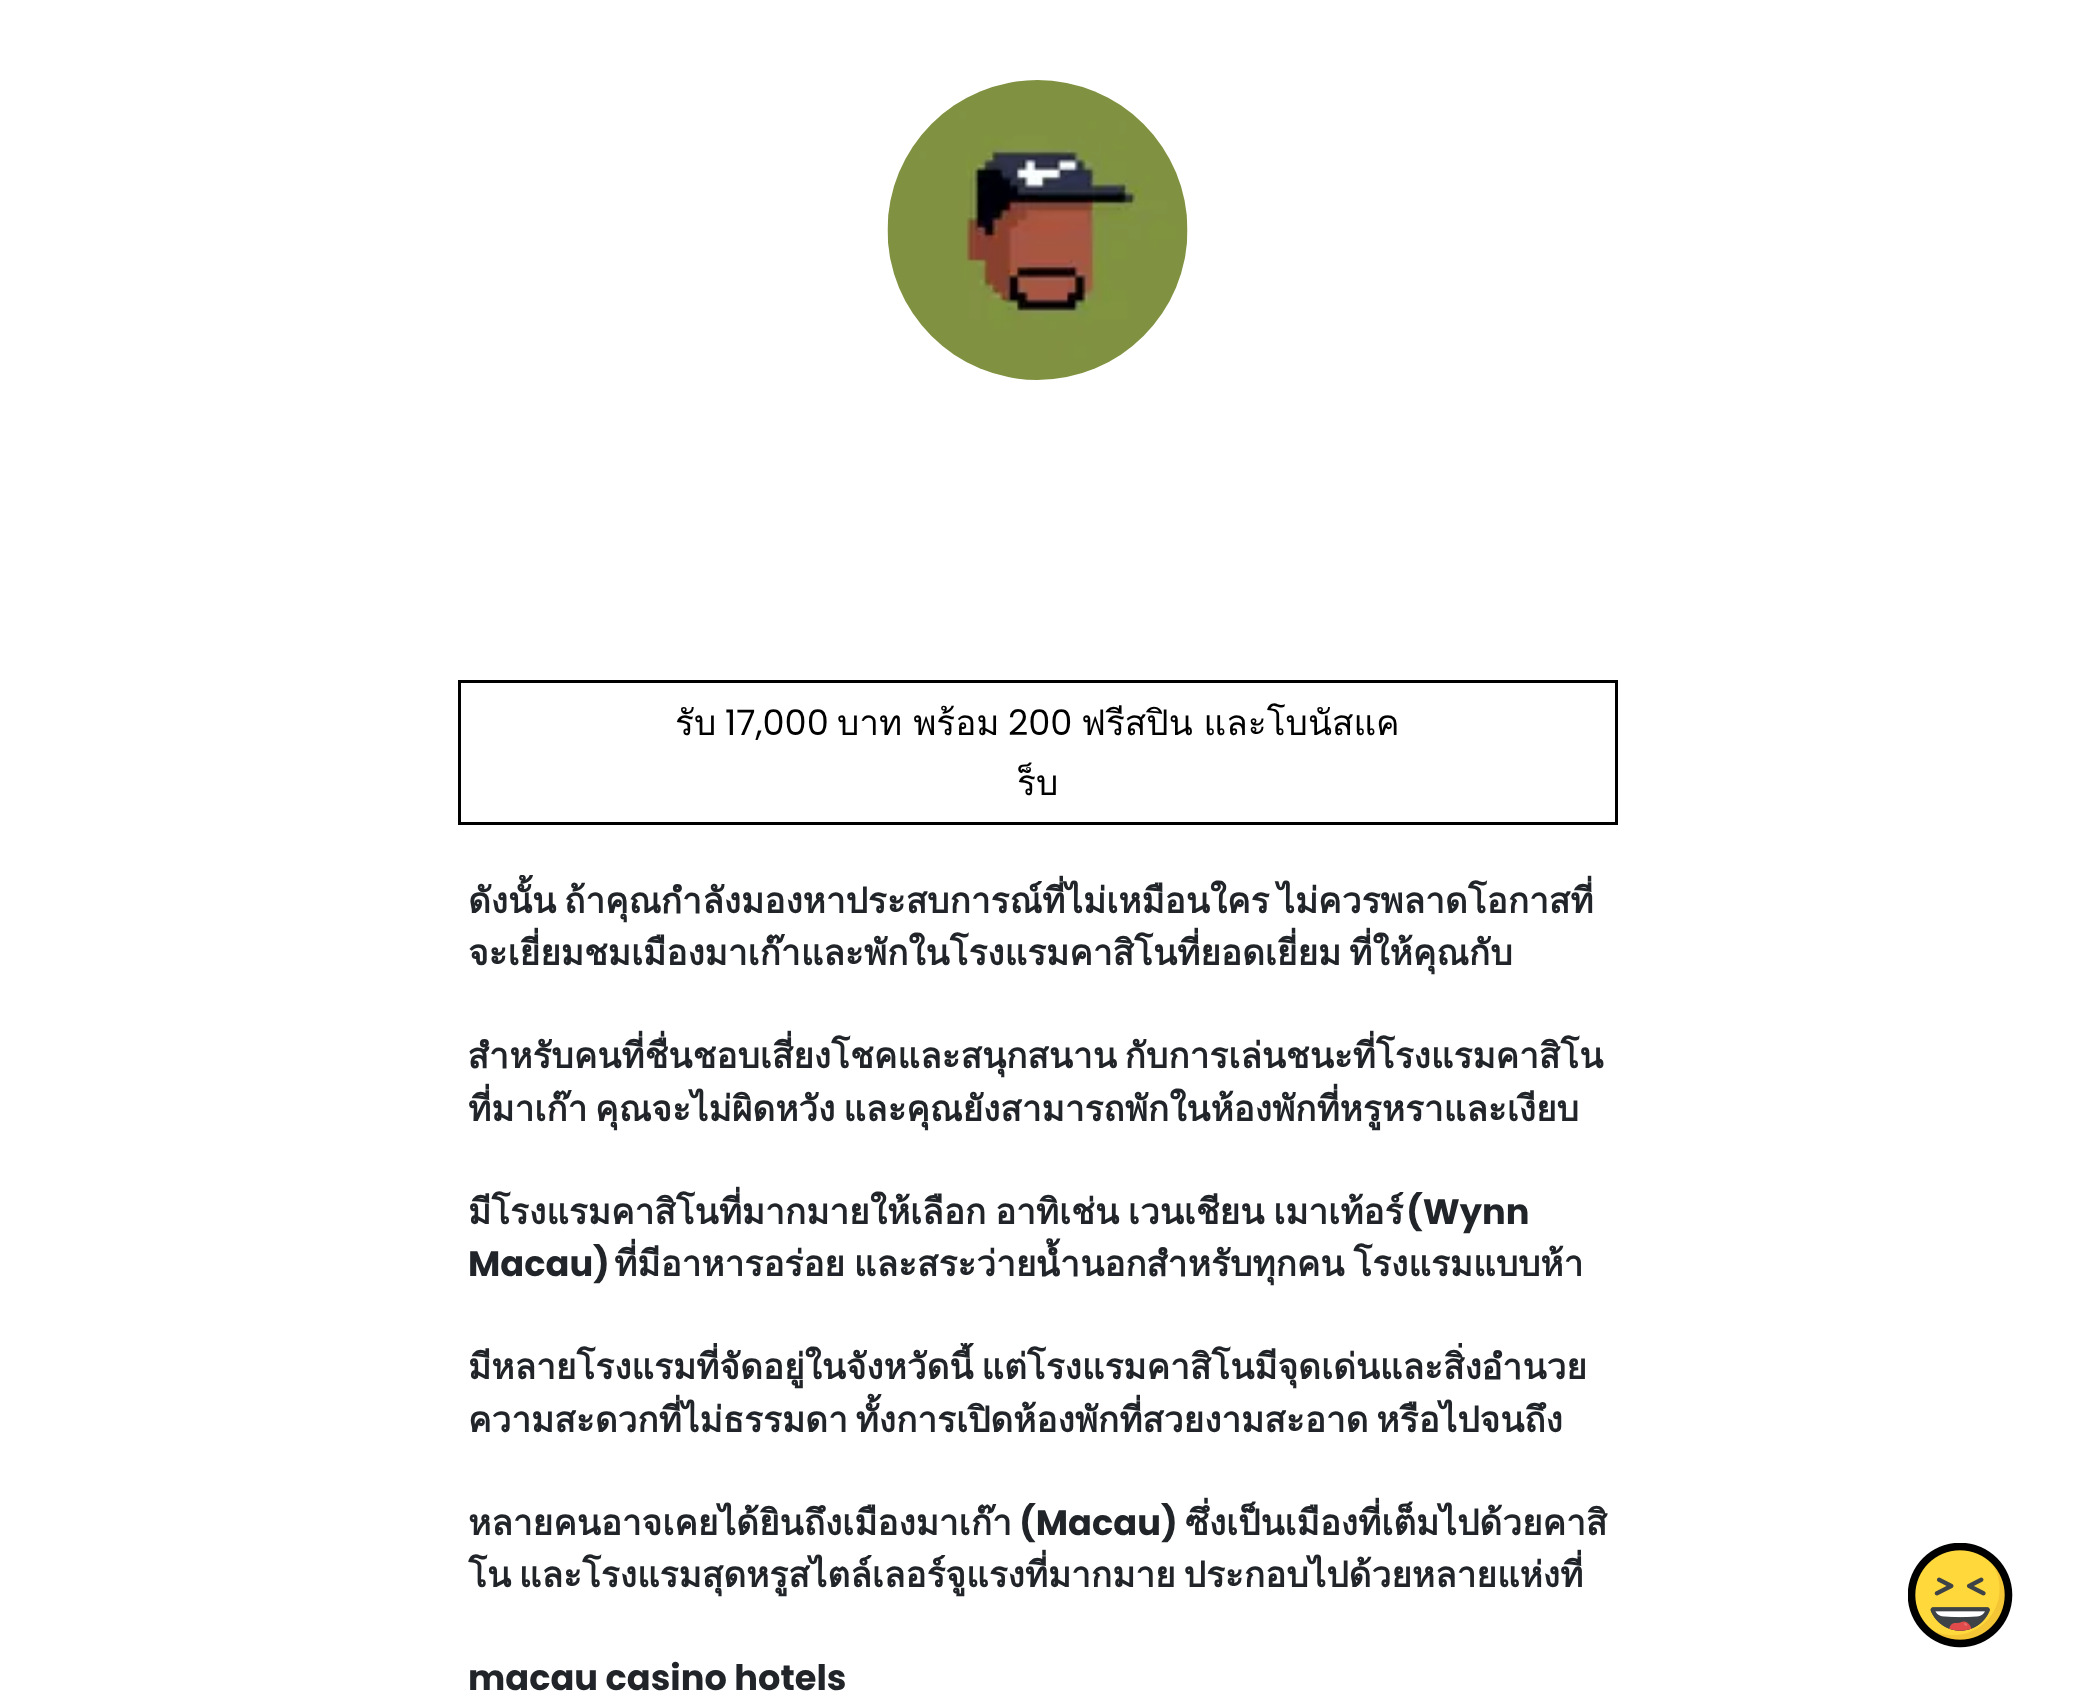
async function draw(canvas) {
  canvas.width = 2074;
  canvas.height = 1704;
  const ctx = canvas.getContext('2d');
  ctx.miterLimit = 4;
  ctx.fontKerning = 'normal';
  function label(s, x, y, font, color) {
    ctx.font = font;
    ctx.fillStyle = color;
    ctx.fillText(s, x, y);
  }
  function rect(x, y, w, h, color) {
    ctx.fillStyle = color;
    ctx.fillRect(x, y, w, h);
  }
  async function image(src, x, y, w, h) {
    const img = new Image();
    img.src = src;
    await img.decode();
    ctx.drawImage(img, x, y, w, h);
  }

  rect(0, 0, 2074, 1704, '#fff');
  await image('assets/img1.png', 887, 80, 301, 300);
  ctx.strokeStyle = '#000';
  ctx.lineWidth = 3;
  ctx.strokeRect(459.5, 681.5, 1157, 142);
  ctx.save();
  ctx.beginPath();
  ctx.rect(663, 693, 750, 120);
  ctx.clip();
  label('รับ', 675, 735, '35.2px Loma', '#000');
  ctx.restore();
  label('17,000', 725, 735, '35.2px Poppins', '#000');
  ctx.wordSpacing = '-1px';
  label('บาท พร้อม', 837, 735, '35.2px Loma', '#000');
  ctx.wordSpacing = '0px';
  label('200', 1008, 735, '35.2px Poppins', '#000');
  ctx.wordSpacing = '-1px';
  label('ฟรีสปิน และโบนัสแค', 1081, 735, '35.2px Loma', '#000');
  ctx.wordSpacing = '0px';
  label('ร็บ', 1017, 795, '35.2px Loma', '#000');
  ctx.save();
  ctx.beginPath();
  ctx.rect(468, 875, 1140, 105);
  ctx.clip();
  ctx.wordSpacing = '-4px';
  label('ดังนั้น ถ้าคุณกำลังมองหาประสบการณ์ที่ไม่เหมือนใคร ไม่ควรพลาดโอกาสที่', 468, 913, 'bold 35.2px Loma', '#212529');
  ctx.restore();
  ctx.wordSpacing = '-4px';
  label('จะเยี่ยมชมเมืองมาเก๊าและพักในโรงแรมคาสิโนที่ยอดเยี่ยม ที่ให้คุณกับ', 468, 965, 'bold 35.2px Loma', '#212529');
  ctx.save();
  ctx.beginPath();
  ctx.rect(468, 1030, 1140, 105);
  ctx.clip();
  label('สำหรับคนที่ชื่นชอบเสี่ยงโชคและสนุกสนาน กับการเล่นชนะที่โรงแรมคาสิโน', 468, 1068, 'bold 35.2px Loma', '#212529');
  label('ที่มาเก๊า คุณจะไม่ผิดหวัง และคุณยังสามารถพักในห้องพักที่หรูหราและเงียบ', 468, 1121, 'bold 35.2px Loma', '#212529');
  ctx.restore();
  ctx.save();
  ctx.beginPath();
  ctx.rect(468, 1185, 1140, 108);
  ctx.clip();
  ctx.wordSpacing = '-3px';
  label('มีโรงแรมคาสิโนที่มากมายให้เลือก อาทิเช่น เวนเชียน เมาเท้อร์', 468, 1224, 'bold 35.2px Loma', '#212529');
  ctx.restore();
  ctx.wordSpacing = '0px';
  label('(Wynn', 1406, 1224, 'bold 35.2px Poppins', '#212529');
  label('Macau)', 468, 1276, 'bold 35.2px Poppins', '#212529');
  ctx.wordSpacing = '-3px';
  label('ที่มีอาหารอร่อย และสระว่ายน้ำนอกสำหรับทุกคน โรงแรมแบบห้า', 614, 1276, 'bold 35.2px Loma', '#212529');
  ctx.save();
  ctx.beginPath();
  ctx.rect(468, 1343, 1140, 105);
  ctx.clip();
  ctx.wordSpacing = '-4px';
  label('มีหลายโรงแรมที่จัดอยู่ในจังหวัดนี้ แต่โรงแรมคาสิโนมีจุดเด่นและสิ่งอำนวย', 468, 1379, 'bold 35.2px Loma', '#212529');
  ctx.restore();
  ctx.wordSpacing = '-4px';
  label('ความสะดวกที่ไม่ธรรมดา ทั้งการเปิดห้องพักที่สวยงามสะอาด หรือไปจนถึง', 468, 1432, 'bold 35.2px Loma', '#212529');
  ctx.wordSpacing = '0px';
  label('หลายคนอาจเคยได้ยินถึงเมืองมาเก๊า', 468, 1535, 'bold 35.2px Loma', '#212529');
  label('(Macau)', 1019, 1535, 'bold 35.2px Poppins', '#212529');
  label('ซึ่งเป็นเมืองที่เต็มไปด้วยคาสิ', 1185, 1535, 'bold 35.2px Loma', '#212529');
  ctx.wordSpacing = '-4px';
  label('โน และโรงแรมสุดหรูสไตล์เลอร์จูแรงที่มากมาย ประกอบไปด้วยหลายแห่งที่', 468, 1587, 'bold 35.2px Loma', '#212529');
  ctx.wordSpacing = '0px';
  label('macau casino hotels', 468, 1690, 'bold 35.2px Poppins', '#212529');
  await image('assets/img2.png', 1908, 1543, 105, 105);
}

draw(document.querySelector('canvas'));
